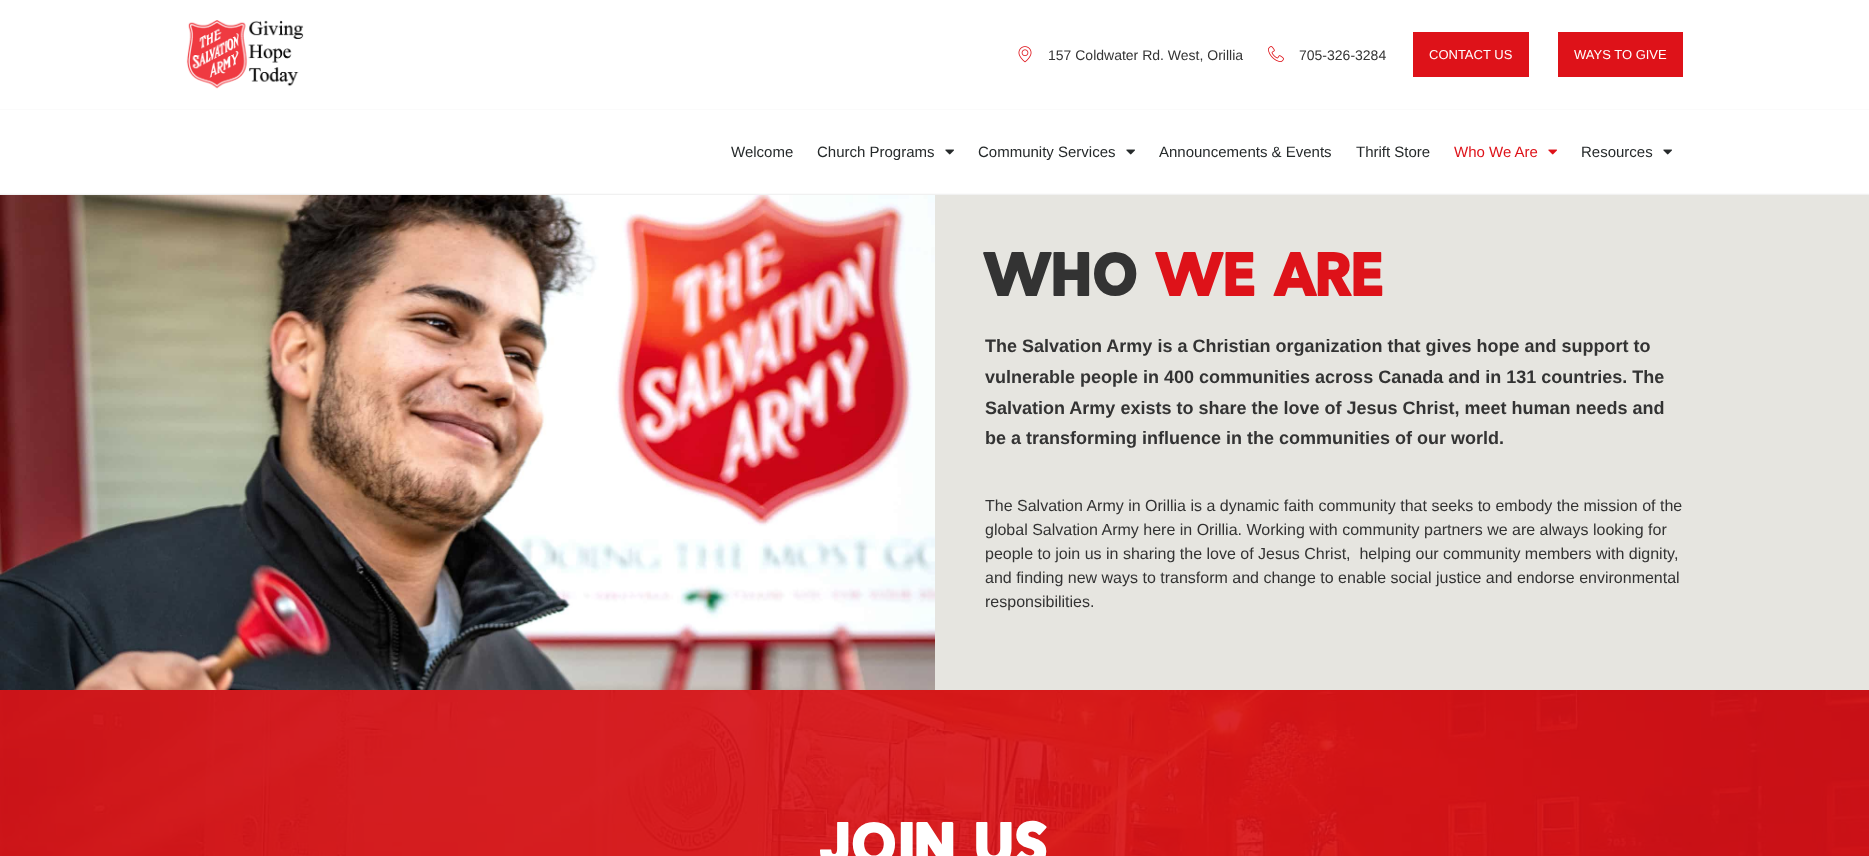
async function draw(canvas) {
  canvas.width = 1869;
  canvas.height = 856;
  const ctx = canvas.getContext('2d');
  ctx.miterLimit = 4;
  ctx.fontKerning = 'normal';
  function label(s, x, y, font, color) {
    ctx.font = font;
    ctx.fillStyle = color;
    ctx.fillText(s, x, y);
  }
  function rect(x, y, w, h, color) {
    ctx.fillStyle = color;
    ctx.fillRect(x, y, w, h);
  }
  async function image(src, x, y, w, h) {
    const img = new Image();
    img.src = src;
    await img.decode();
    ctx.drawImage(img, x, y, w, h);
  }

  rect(0, 0, 1869, 856, '#fff');
  rect(0, 194, 1869, 1, '#f1f1f1');
  rect(0, 109, 1869, 1, '#fbfbfb');
  await image('assets/img1.png', 186, 20, 118, 69);
  await image('assets/img2.png', 1018, 46, 14, 17);
  label('157 Coldwater Rd. West, Orillia', 1048, 60, '14px Liberation Sans', '#333');
  await image('assets/img3.png', 1268, 46, 16, 16);
  label('705-326-3284', 1299, 60, '14px Liberation Sans', '#333');
  rect(1413, 32, 116, 45, '#de1219');
  label('CONTACT US', 1429, 59, '13px Liberation Sans', '#fff');
  rect(1558, 32, 125, 45, '#de1219');
  label('WAYS TO GIVE', 1574, 59, '13px Liberation Sans', '#fff');
  rect(0, 193, 1869, 1, '#fbfbfb');
  label('Welcome', 731, 157, '15px Liberation Sans', '#262a2b');
  label('Church Programs', 817, 157, '15px Liberation Sans', '#262a2b');
  await image('assets/img4.png', 945, 149, 9, 6);
  label('Community Services', 978, 157, '15px Liberation Sans', '#262a2b');
  await image('assets/img4.png', 1126, 149, 9, 6);
  label('Announcements & Events', 1159, 157, '15px Liberation Sans', '#262a2b');
  label('Thrift Store', 1356, 157, '15px Liberation Sans', '#262a2b');
  label('Who We Are', 1454, 157, '15px Liberation Sans', '#de1219');
  await image('assets/img5.png', 1548, 149, 9, 6);
  label('Resources', 1581, 157, '15px Liberation Sans', '#262a2b');
  await image('assets/img4.png', 1663, 149, 9, 6);
  rect(935, 195, 934, 495, '#e6e5e0');
  await image('assets/img6.png', 0, 195, 935, 495);
  ctx.letterSpacing = '0.25px';
  label('Who', 985, 296, '60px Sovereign', '#333');
  label('we are', 1157, 296, '60px Sovereign', '#de1219');
  ctx.letterSpacing = '0px';
  label('The Salvation Army is a Christian organization that gives hope and support to', 985, 352, 'bold 18px Liberation Sans', '#333');
  label('vulnerable people in 400 communities across Canada and in 131 countries. The', 985, 383, 'bold 18px Liberation Sans', '#333');
  label('Salvation Army exists to share the love of Jesus Christ, meet human needs and', 985, 414, 'bold 18px Liberation Sans', '#333');
  label('be a transforming influence in the communities of our world.', 985, 444, 'bold 18px Liberation Sans', '#333');
  label('The Salvation Army in Orillia is a dynamic faith community that seeks to embody the mission of the', 985, 511, '16px Liberation Sans', '#333');
  label('global Salvation Army here in Orillia. Working with community partners we are always looking for', 985, 535, '16px Liberation Sans', '#333');
  label('people to join us in sharing the love of Jesus Christ,  helping our community members with dignity,', 985, 559, '16px Liberation Sans', '#333');
  label('and finding new ways to transform and change to enable social justice and endorse environmental', 985, 583, '16px Liberation Sans', '#333');
  label('responsibilities.', 985, 607, '16px Liberation Sans', '#333');
  await image('assets/img7.png', 0, 690, 1869, 166);
  ctx.letterSpacing = '0.25px';
  label('Join Us', 820, 866, '60px Sovereign', '#fff');
}

draw(document.querySelector('canvas'));
